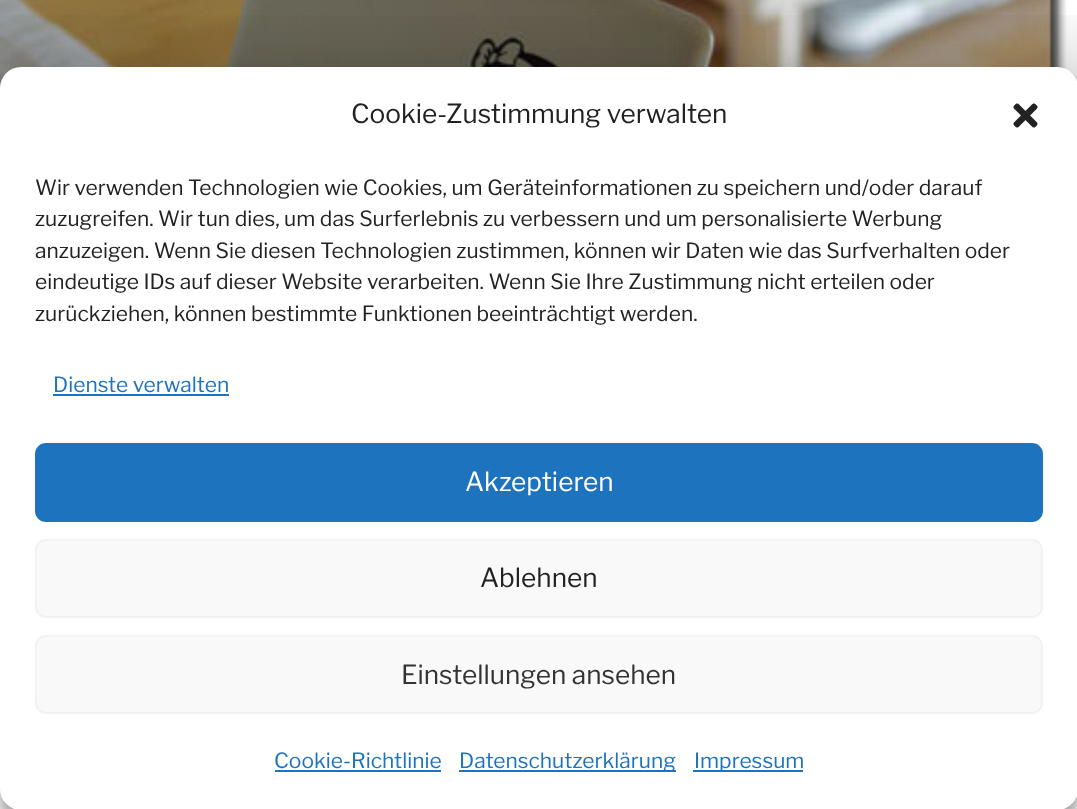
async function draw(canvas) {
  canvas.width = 1077;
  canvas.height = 809;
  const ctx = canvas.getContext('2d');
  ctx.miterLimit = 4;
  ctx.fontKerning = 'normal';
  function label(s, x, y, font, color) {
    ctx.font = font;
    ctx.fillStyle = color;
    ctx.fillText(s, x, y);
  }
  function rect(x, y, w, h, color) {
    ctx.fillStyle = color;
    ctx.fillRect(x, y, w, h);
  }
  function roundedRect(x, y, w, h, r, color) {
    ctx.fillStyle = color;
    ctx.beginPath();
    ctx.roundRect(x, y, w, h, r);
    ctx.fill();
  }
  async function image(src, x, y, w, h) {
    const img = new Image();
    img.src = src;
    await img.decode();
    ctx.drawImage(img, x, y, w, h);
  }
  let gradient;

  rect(0, 0, 1077, 809, '#fff');
  await image('assets/img1.png', 0, 0, 1077, 88);
  gradient = ctx.createLinearGradient(539, 0, 539, 280);
  gradient.addColorStop(0, '#00000000');
  gradient.addColorStop(0.75, '#0000004d');
  gradient.addColorStop(1, '#0000004d');
  ctx.fillStyle = gradient;
  ctx.fillRect(0, 15, 1077, 73);
  ctx.fillStyle = '#0000003b';
  ctx.filter = 'blur(5px)';
  ctx.beginPath();
  ctx.roundRect(0, 77, 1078, 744, 21);
  ctx.fill();
  ctx.filter = 'none';
  ctx.fillStyle = '#00000030';
  ctx.filter = 'blur(17.5px)';
  ctx.beginPath();
  ctx.roundRect(0, 84, 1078, 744, 21);
  ctx.fill();
  ctx.filter = 'none';
  roundedRect(0, 67, 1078, 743, 21, '#fff');
  label('Cookie-Zustimmung verwalten', 351, 123, '26.25px Libre Franklin', '#222');
  await image('assets/img2.png', 1013, 103, 25, 25);
  label('Wir verwenden Technologien wie Cookies, um Geräteinformationen zu speichern und/oder darauf', 35, 195, '21px Libre Franklin', '#222');
  label('zuzugreifen. Wir tun dies, um das Surferlebnis zu verbessern und um personalisierte Werbung', 35, 226, '21px Libre Franklin', '#222');
  label('anzuzeigen. Wenn Sie diesen Technologien zustimmen, können wir Daten wie das Surfverhalten oder', 35, 258, '21px Libre Franklin', '#222');
  label('eindeutige IDs auf dieser Website verarbeiten. Wenn Sie Ihre Zustimmung nicht erteilen oder', 35, 289, '21px Libre Franklin', '#222');
  label('zurückziehen, können bestimmte Funktionen beeinträchtigt werden.', 35, 321, '21px Libre Franklin', '#222');
  label('Dienste verwalten', 53, 392, '21px Libre Franklin', '#1e73be');
  rect(53, 394, 176, 2, '#1e73be');
  ctx.beginPath();
  ctx.roundRect(36, 444, 1006, 77, 10);
  ctx.fill();
  ctx.strokeStyle = '#1e73be';
  ctx.lineWidth = 2;
  ctx.stroke();
  label('Akzeptieren', 465, 491, '26.25px Libre Franklin', '#fff');
  ctx.fillStyle = '#f9f9f9';
  ctx.beginPath();
  ctx.roundRect(36, 540, 1006, 77, 10);
  ctx.fill();
  ctx.strokeStyle = '#f2f2f2';
  ctx.stroke();
  label('Ablehnen', 480, 587, '26.25px Libre Franklin', '#222');
  ctx.fillStyle = '#f9f9f9';
  ctx.beginPath();
  ctx.roundRect(36, 636, 1006, 77, 10);
  ctx.fill();
  ctx.stroke();
  label('Einstellungen ansehen', 401, 684, '26.25px Libre Franklin', '#333');
  label('Cookie-Richtlinie', 274, 768, '21px Libre Franklin', '#1e73be');
  rect(275, 770, 166, 2, '#1e73be');
  rect(459, 770, 217, 2, '#1e73be');
  label('Datenschutzerklärung', 459, 768, '21px Libre Franklin', '#1e73be');
  rect(693, 770, 110, 2, '#1e73be');
  label('Impressum', 694, 768, '21px Libre Franklin', '#1e73be');
}

draw(document.querySelector('canvas'));
